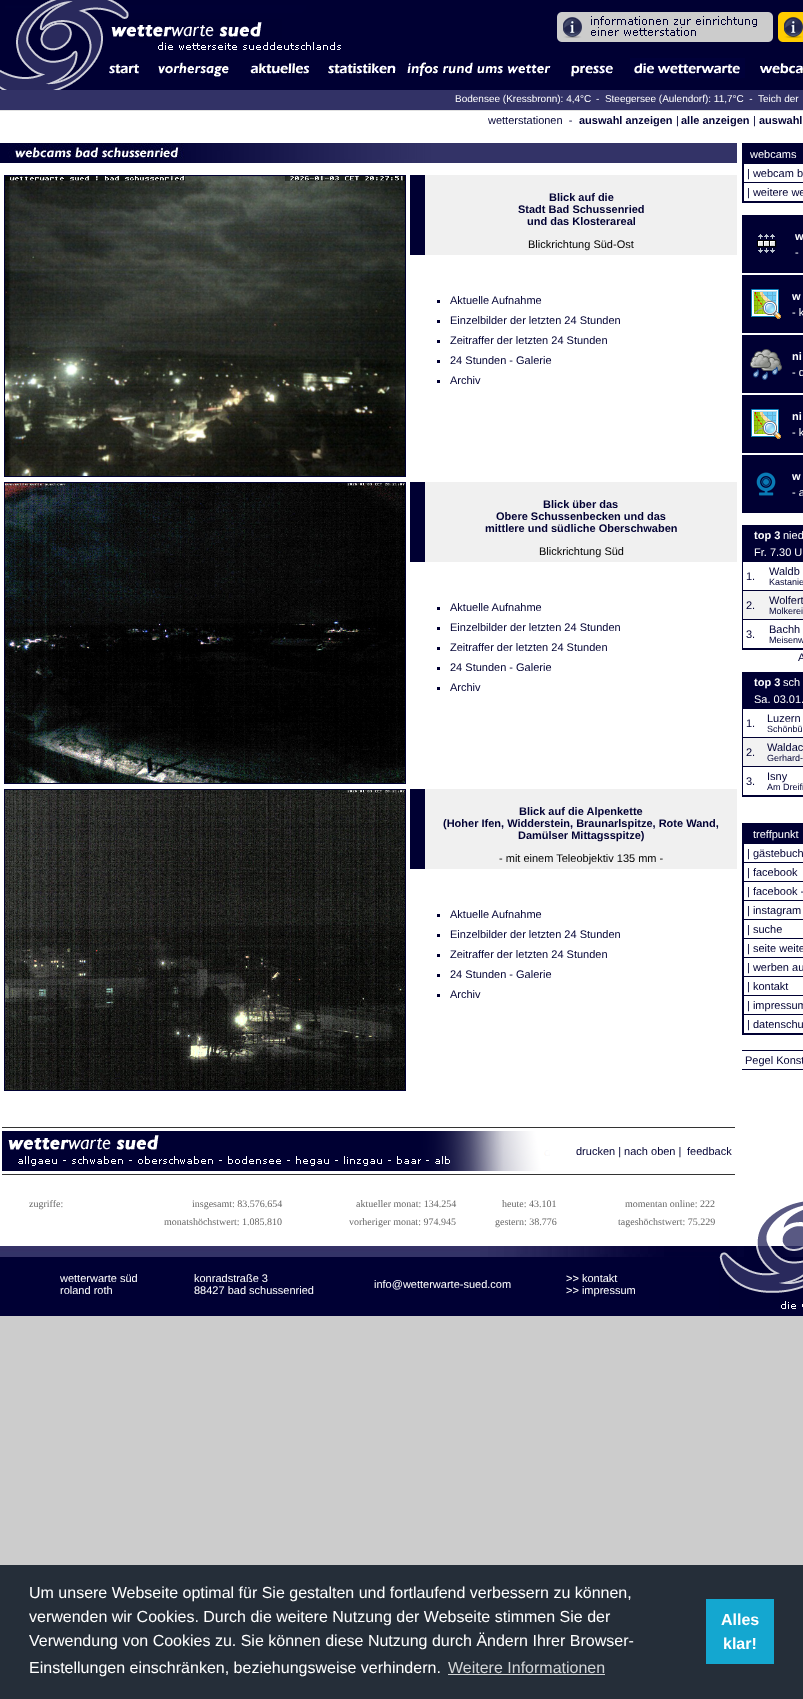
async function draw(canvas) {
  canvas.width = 803;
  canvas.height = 1699;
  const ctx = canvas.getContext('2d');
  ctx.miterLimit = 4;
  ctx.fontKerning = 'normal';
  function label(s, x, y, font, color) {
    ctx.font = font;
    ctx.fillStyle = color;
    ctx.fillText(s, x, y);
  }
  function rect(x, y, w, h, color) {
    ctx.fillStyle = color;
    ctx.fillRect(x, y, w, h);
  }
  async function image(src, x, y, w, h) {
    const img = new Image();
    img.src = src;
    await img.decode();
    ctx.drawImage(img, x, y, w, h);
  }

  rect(0, 0, 803, 1699, '#ccc');
  await image('assets/img1.png', 0, 0, 99, 90);
  rect(99, 0, 704, 90, '#003');
  await image('assets/img2.png', 99, 0, 242, 55);
  await image('assets/img3.png', 557, 12, 216, 30);
  await image('assets/img4.png', 778, 12, 25, 30);
  await image('assets/img5.png', 109, 64, 30, 10);
  await image('assets/img6.png', 158, 62, 71, 15);
  await image('assets/img7.png', 250, 63, 59, 11);
  await image('assets/img8.png', 328, 63, 68, 11);
  await image('assets/img9.png', 407, 62, 144, 14);
  await image('assets/img10.png', 571, 65, 42, 12);
  await image('assets/img11.png', 630, 58, 115, 20);
  await image('assets/img12.png', 760, 63, 43, 11);
  rect(0, 90, 803, 20, '#323266');
  label('Bodensee (Kressbronn): 4,4°C', 455, 102, '10px Liberation Sans', '#fff');
  label('-  Steegersee (Aulendorf): 11,7°C  -  Teich der', 596, 102, '10px Liberation Sans', '#fff');
  rect(0, 111, 803, 1135, '#fff');
  rect(0, 110, 803, 1, '#e2e2e2');
  label('wetterstationen  -', 488, 124, '11px Liberation Sans', '#003');
  label('auswahl anzeigen', 579, 124, 'bold 11px Liberation Sans', '#003');
  label('|', 676, 124, '11px Liberation Sans', '#003');
  label('alle anzeigen', 681, 124, 'bold 11px Liberation Sans', '#003');
  label('|', 753, 124, '11px Liberation Sans', '#003');
  label('auswahl', 759, 124, 'bold 11px Liberation Sans', '#003');
  await image('assets/img13.png', 0, 143, 737, 20);
  ctx.strokeStyle = '#003';
  ctx.strokeRect(4.5, 175.5, 401, 301);
  await image('assets/img14.png', 5, 176, 400, 300);
  rect(425, 175, 312, 80, '#f0f0f0');
  rect(410, 175, 15, 80, '#003');
  label('Blick auf die', 549, 201, 'bold 11px Liberation Sans', '#003');
  label('Stadt Bad Schussenried', 518, 213, 'bold 11px Liberation Sans', '#003');
  label('und das Klosterareal', 527, 225, 'bold 11px Liberation Sans', '#003');
  label('Blickrichtung Süd-Ost', 528, 248, '11px Liberation Sans', '#000');
  rect(437, 300, 3, 3, '#003');
  label('Aktuelle Aufnahme', 450, 304, '11px Liberation Sans', '#003');
  rect(437, 320, 3, 3, '#003');
  label('Einzelbilder der letzten 24 Stunden', 450, 324, '11px Liberation Sans', '#003');
  rect(437, 340, 3, 3, '#003');
  label('Zeitraffer der letzten 24 Stunden', 450, 344, '11px Liberation Sans', '#003');
  rect(437, 360, 3, 3, '#003');
  label('24 Stunden - Galerie', 450, 364, '11px Liberation Sans', '#003');
  rect(437, 380, 3, 3, '#003');
  label('Archiv', 450, 384, '11px Liberation Sans', '#003');
  ctx.strokeRect(4.5, 482.5, 401, 301);
  await image('assets/img15.png', 5, 483, 400, 300);
  rect(425, 482, 312, 80, '#f0f0f0');
  rect(410, 482, 15, 80, '#003');
  label('Blick über das', 543, 508, 'bold 11px Liberation Sans', '#003');
  label('Obere Schussenbecken und das', 496, 520, 'bold 11px Liberation Sans', '#003');
  label('mittlere und südliche Oberschwaben', 485, 532, 'bold 11px Liberation Sans', '#003');
  label('Blickrichtung Süd', 539, 555, '11px Liberation Sans', '#000');
  rect(437, 607, 3, 3, '#003');
  label('Aktuelle Aufnahme', 450, 611, '11px Liberation Sans', '#003');
  rect(437, 627, 3, 3, '#003');
  label('Einzelbilder der letzten 24 Stunden', 450, 631, '11px Liberation Sans', '#003');
  rect(437, 647, 3, 3, '#003');
  label('Zeitraffer der letzten 24 Stunden', 450, 651, '11px Liberation Sans', '#003');
  rect(437, 667, 3, 3, '#003');
  label('24 Stunden - Galerie', 450, 671, '11px Liberation Sans', '#003');
  rect(437, 687, 3, 3, '#003');
  label('Archiv', 450, 691, '11px Liberation Sans', '#003');
  ctx.strokeRect(4.5, 789.5, 401, 301);
  await image('assets/img16.png', 5, 790, 400, 300);
  rect(425, 789, 312, 80, '#f0f0f0');
  rect(410, 789, 15, 80, '#003');
  label('Blick auf die Alpenkette', 519, 815, 'bold 11px Liberation Sans', '#003');
  label('(Hoher Ifen, Widderstein, Braunarlspitze, Rote Wand,', 443, 827, 'bold 11px Liberation Sans', '#003');
  label('Damülser Mittagsspitze)', 518, 839, 'bold 11px Liberation Sans', '#003');
  label('- mit einem Teleobjektiv 135 mm -', 499, 862, '11px Liberation Sans', '#000');
  rect(437, 914, 3, 3, '#003');
  label('Aktuelle Aufnahme', 450, 918, '11px Liberation Sans', '#003');
  rect(437, 934, 3, 3, '#003');
  label('Einzelbilder der letzten 24 Stunden', 450, 938, '11px Liberation Sans', '#003');
  rect(437, 954, 3, 3, '#003');
  label('Zeitraffer der letzten 24 Stunden', 450, 958, '11px Liberation Sans', '#003');
  rect(437, 974, 3, 3, '#003');
  label('24 Stunden - Galerie', 450, 978, '11px Liberation Sans', '#003');
  rect(437, 994, 3, 3, '#003');
  label('Archiv', 450, 998, '11px Liberation Sans', '#003');
  rect(742, 143, 61, 60, '#003');
  label('webcams', 750, 158, '11px Liberation Sans', '#fff');
  rect(744, 164, 59, 18, '#fff');
  label('| webcam b', 747, 177, '11px Liberation Sans', '#003');
  rect(744, 183, 59, 18, '#fff');
  label('| weitere we', 747, 196, '11px Liberation Sans', '#003');
  rect(742, 215, 61, 58, '#003');
  await image('assets/img17.png', 757, 234, 20, 19);
  label('w', 795, 240, 'bold 11px Liberation Sans', '#fff');
  label('-', 795, 256, '11px Liberation Sans', '#fff');
  rect(742, 275, 61, 58, '#003');
  await image('assets/img18.png', 750, 289, 32, 30);
  label('w', 792, 300, 'bold 11px Liberation Sans', '#fff');
  label('- k', 792, 316, '11px Liberation Sans', '#fff');
  rect(742, 335, 61, 58, '#003');
  await image('assets/img19.png', 750, 349, 32, 31);
  label('ni', 792, 360, 'bold 11px Liberation Sans', '#fff');
  label('- d', 792, 376, '11px Liberation Sans', '#fff');
  rect(742, 395, 61, 58, '#003');
  await image('assets/img18.png', 750, 409, 32, 30);
  label('ni', 792, 420, 'bold 11px Liberation Sans', '#fff');
  label('- k', 792, 436, '11px Liberation Sans', '#fff');
  rect(742, 455, 61, 58, '#003');
  await image('assets/img20.png', 756, 472, 20, 24);
  label('w', 792, 480, 'bold 11px Liberation Sans', '#fff');
  label('- a', 792, 496, '11px Liberation Sans', '#fff');
  rect(742, 525, 61, 125, '#003');
  label('top 3', 754, 539, 'bold 11px Liberation Sans', '#fff');
  label('nied', 783, 539, '11px Liberation Sans', '#fff');
  label('Fr. 7.30 U', 754, 556, '11px Liberation Sans', '#fff');
  rect(743, 562, 60, 28, '#fff');
  label('1.', 746, 580, '11px Liberation Sans', '#003');
  label('Waldb', 769, 575, '11px Liberation Sans', '#003');
  label('Kastanie', 769, 585, '9px Liberation Sans', '#003');
  rect(743, 591, 60, 28, '#f2f2f2');
  label('2.', 746, 609, '11px Liberation Sans', '#003');
  label('Wolfert', 769, 604, '11px Liberation Sans', '#003');
  label('Molkerei', 769, 614, '9px Liberation Sans', '#003');
  rect(743, 620, 60, 28, '#fff');
  label('3.', 746, 638, '11px Liberation Sans', '#003');
  label('Bachh', 769, 633, '11px Liberation Sans', '#003');
  label('Meisenw', 769, 643, '9px Liberation Sans', '#003');
  label('A', 798, 661, '11px Liberation Sans', '#003');
  rect(742, 672, 61, 125, '#003');
  label('top 3', 754, 686, 'bold 11px Liberation Sans', '#fff');
  label('sch', 783, 686, '11px Liberation Sans', '#fff');
  label('Sa. 03.01.', 754, 703, '11px Liberation Sans', '#fff');
  rect(743, 709, 60, 28, '#fff');
  label('1.', 746, 727, '11px Liberation Sans', '#003');
  label('Luzern', 767, 722, '11px Liberation Sans', '#003');
  label('Schönbü', 767, 732, '9px Liberation Sans', '#003');
  rect(743, 738, 60, 28, '#f2f2f2');
  label('2.', 746, 756, '11px Liberation Sans', '#003');
  label('Waldac', 767, 751, '11px Liberation Sans', '#003');
  label('Gerhard-', 767, 761, '9px Liberation Sans', '#003');
  rect(743, 767, 60, 28, '#fff');
  label('3.', 746, 785, '11px Liberation Sans', '#003');
  label('Isny', 767, 780, '11px Liberation Sans', '#003');
  label('Am Dreifi', 767, 790, '9px Liberation Sans', '#003');
  rect(742, 823, 61, 212, '#003');
  label('treffpunkt', 753, 838, '11px Liberation Sans', '#fff');
  rect(744, 844, 59, 18, '#fff');
  label('| gästebuch', 747, 857, '11px Liberation Sans', '#003');
  rect(744, 863, 59, 18, '#fff');
  label('| facebook', 747, 876, '11px Liberation Sans', '#003');
  rect(744, 882, 59, 18, '#fff');
  label('| facebook -', 747, 895, '11px Liberation Sans', '#003');
  rect(744, 901, 59, 18, '#fff');
  label('| instagram', 747, 914, '11px Liberation Sans', '#003');
  rect(744, 920, 59, 18, '#fff');
  label('| suche', 747, 933, '11px Liberation Sans', '#003');
  rect(744, 939, 59, 18, '#fff');
  label('| seite weite', 747, 952, '11px Liberation Sans', '#003');
  rect(744, 958, 59, 18, '#fff');
  label('| werben au', 747, 971, '11px Liberation Sans', '#003');
  rect(744, 977, 59, 18, '#fff');
  label('| kontakt', 747, 990, '11px Liberation Sans', '#003');
  rect(744, 996, 59, 18, '#fff');
  label('| impressum', 747, 1009, '11px Liberation Sans', '#003');
  rect(744, 1015, 59, 18, '#fff');
  label('| datenschu', 747, 1028, '11px Liberation Sans', '#003');
  rect(742, 1050, 61, 1, '#003');
  rect(742, 1069, 61, 1, '#003');
  label('Pegel Konst', 745, 1064, '11px Liberation Sans', '#003');
  rect(2, 1127, 733, 1, '#333');
  await image('assets/img21.png', 2, 1131, 548, 40);
  label('drucken | nach oben |', 576, 1155, '11px Liberation Sans', '#003');
  label('feedback', 687, 1155, '11px Liberation Sans', '#003');
  rect(2, 1174, 733, 1, '#333');
  label('zugriffe:', 29, 1207, '10px Liberation Serif', '#666');
  label('insgesamt: 83.576.654', 192, 1207, '10px Liberation Serif', '#666');
  label('aktueller monat: 134.254', 356, 1207, '10px Liberation Serif', '#666');
  label('heute: 43.101', 502, 1207, '10px Liberation Serif', '#666');
  label('momentan online: 222', 625, 1207, '10px Liberation Serif', '#666');
  label('monatshöchstwert: 1.085.810', 164, 1225, '10px Liberation Serif', '#666');
  label('vorheriger monat: 974.945', 349, 1225, '10px Liberation Serif', '#666');
  label('gestern: 38.776', 495, 1225, '10px Liberation Serif', '#666');
  label('tageshöchstwert: 75.229', 618, 1225, '10px Liberation Serif', '#666');
  await image('assets/img22.png', 757, 1201, 46, 45);
  await image('assets/img23.png', 0, 1246, 803, 11);
  rect(0, 1257, 803, 59, '#000034');
  label('wetterwarte süd', 60, 1282, '11px Liberation Sans', '#fff');
  label('konradstraße 3', 194, 1282, '11px Liberation Sans', '#fff');
  label('>> kontakt', 566, 1282, '11px Liberation Sans', '#fff');
  label('info@wetterwarte-sued.com', 374, 1288, '11px Liberation Sans', '#fff');
  label('roland roth', 60, 1294, '11px Liberation Sans', '#fff');
  label('88427 bad schussenried', 194, 1294, '11px Liberation Sans', '#fff');
  label('>> impressum', 566, 1294, '11px Liberation Sans', '#fff');
  await image('assets/img24.png', 719, 1257, 84, 52);
  rect(0, 1565, 803, 134, '#252e39');
  label('Um unsere Webseite optimal für Sie gestalten und fortlaufend verbessern zu können,', 29, 1598, '16px Liberation Sans', '#fff');
  label('verwenden wir Cookies. Durch die weitere Nutzung der Webseite stimmen Sie der', 29, 1622, '16px Liberation Sans', '#fff');
  label('Verwendung von Cookies zu. Sie können diese Nutzung durch Ändern Ihrer Browser-', 29, 1646, '16px Liberation Sans', '#fff');
  label('Einstellungen einschränken, beziehungsweise verhindern.', 29, 1673, '16px Liberation Sans', '#fff');
  label('Weitere Informationen', 448, 1673, '16px Liberation Sans', '#d3d5d7');
  rect(448, 1674, 157, 1, '#d3d5d7');
  rect(706, 1599, 68, 65, '#14a7d0');
  label('Alles', 721, 1625, 'bold 16px Liberation Sans', '#fff');
  label('klar!', 723, 1649, 'bold 16px Liberation Sans', '#fff');
}

draw(document.querySelector('canvas'));
